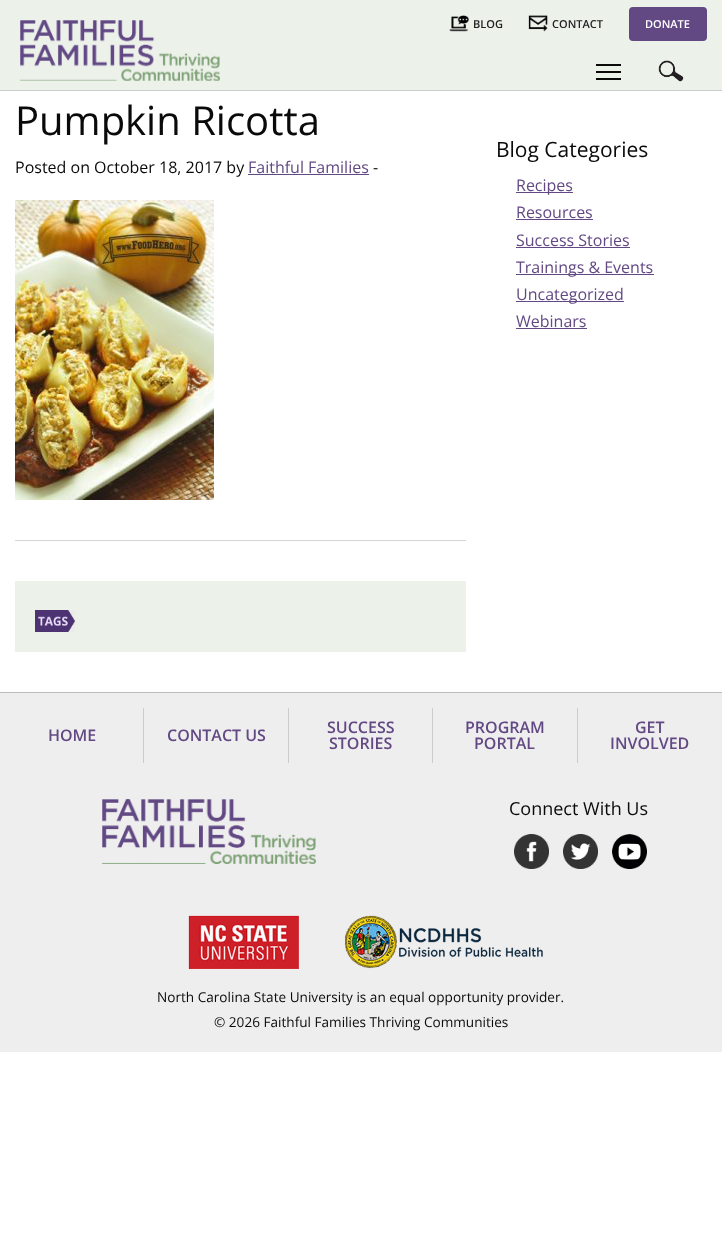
async function draw(canvas) {
  canvas.width = 722;
  canvas.height = 1247;
  const ctx = canvas.getContext('2d');
  ctx.miterLimit = 4;
  ctx.fontKerning = 'normal';
  function label(s, x, y, font, color) {
    ctx.font = font;
    ctx.fillStyle = color;
    ctx.fillText(s, x, y);
  }
  function rect(x, y, w, h, color) {
    ctx.fillStyle = color;
    ctx.fillRect(x, y, w, h);
  }
  function roundedRect(x, y, w, h, r, color) {
    ctx.fillStyle = color;
    ctx.beginPath();
    ctx.roundRect(x, y, w, h, r);
    ctx.fill();
  }
  async function image(src, x, y, w, h) {
    const img = new Image();
    img.src = src;
    await img.decode();
    ctx.drawImage(img, x, y, w, h);
  }

  rect(0, 0, 722, 1247, '#fff');
  rect(0, 0, 722, 90, '#ecf1ea');
  rect(0, 90, 722, 1, '#ccc');
  await image('assets/img1.png', 20, 20, 200, 61);
  await image('assets/img2.png', 449, 15, 20, 17);
  label('BLOG', 473, 28, '600 11px Open Sans', '#222');
  await image('assets/img3.png', 528, 15, 20, 17);
  label('CONTACT', 552, 28, '600 11px Open Sans', '#222');
  roundedRect(629, 7, 78, 34, 4, '#624984');
  label('DONATE', 645, 28, '600 11px Open Sans', '#fff');
  rect(596, 78, 25, 2, '#0a0a0a');
  rect(596, 71, 25, 2, '#0a0a0a');
  rect(596, 64, 25, 2, '#0a0a0a');
  await image('assets/img4.png', 658, 60, 26, 22);
  label('Pumpkin Ricotta', 15, 135, '40px Open Sans', '#0a0a0a');
  label('Posted on October 18, 2017 by', 15, 173, '16px Open Sans', '#0a0a0a');
  label('Faithful Families', 248, 173, '16px Open Sans', '#624984');
  rect(248, 174, 121, 1, '#624984');
  label('-', 373, 173, '16px Open Sans', '#0a0a0a');
  await image('assets/img5.png', 15, 200, 199, 300);
  rect(15, 540, 451, 1, '#d5d5d5');
  rect(15, 581, 451, 71, '#ecf1ea');
  await image('assets/img6.png', 35, 610, 40, 22);
  label('Blog Categories', 496, 157, '21px Open Sans', '#0a0a0a');
  rect(516, 192, 57, 1, '#624984');
  label('Recipes', 516, 191, '16px Open Sans', '#624984');
  label('Resources', 516, 218, '16px Open Sans', '#624984');
  rect(516, 219, 77, 1, '#624984');
  label('Success Stories', 516, 246, '16px Open Sans', '#624984');
  rect(516, 247, 114, 1, '#624984');
  rect(516, 274, 138, 1, '#624984');
  label('Trainings & Events', 516, 273, '16px Open Sans', '#624984');
  rect(516, 301, 108, 1, '#624984');
  label('Uncategorized', 516, 300, '16px Open Sans', '#624984');
  label('Webinars', 516, 327, '16px Open Sans', '#624984');
  rect(516, 328, 71, 1, '#624984');
  rect(0, 693, 722, 359, '#eee');
  rect(0, 692, 722, 1, '#bbb');
  rect(143, 708, 1, 55, '#ccc');
  label('HOME', 48, 741, '600 16px Open Sans', '#624984');
  rect(288, 708, 1, 55, '#ccc');
  label('CONTACT US', 167, 741, '600 16px Open Sans', '#624984');
  rect(432, 708, 1, 55, '#ccc');
  label('SUCCESS', 327, 733, '600 16px Open Sans', '#624984');
  label('STORIES', 329, 749, '600 16px Open Sans', '#624984');
  rect(577, 708, 1, 55, '#ccc');
  label('PROGRAM', 465, 733, '600 16px Open Sans', '#624984');
  label('PORTAL', 474, 749, '600 16px Open Sans', '#624984');
  label('GET', 635, 733, '600 16px Open Sans', '#624984');
  label('INVOLVED', 610, 749, '600 16px Open Sans', '#624984');
  await image('assets/img7.png', 102, 799, 214, 65);
  label('Connect With Us', 509, 815, '18px Open Sans', '#0a0a0a');
  await image('assets/img8.png', 514, 834, 35, 35);
  await image('assets/img9.png', 563, 834, 35, 35);
  await image('assets/img10.png', 612, 834, 35, 35);
  await image('assets/img11.png', 188, 915, 355, 54);
  label('North Carolina State University is an equal opportunity provider.', 157, 1002, '13.6px Open Sans', '#0a0a0a');
  label('© 2026 Faithful Families Thriving Communities', 214, 1027, '13.6px Open Sans', '#0a0a0a');
}

draw(document.querySelector('canvas'));
